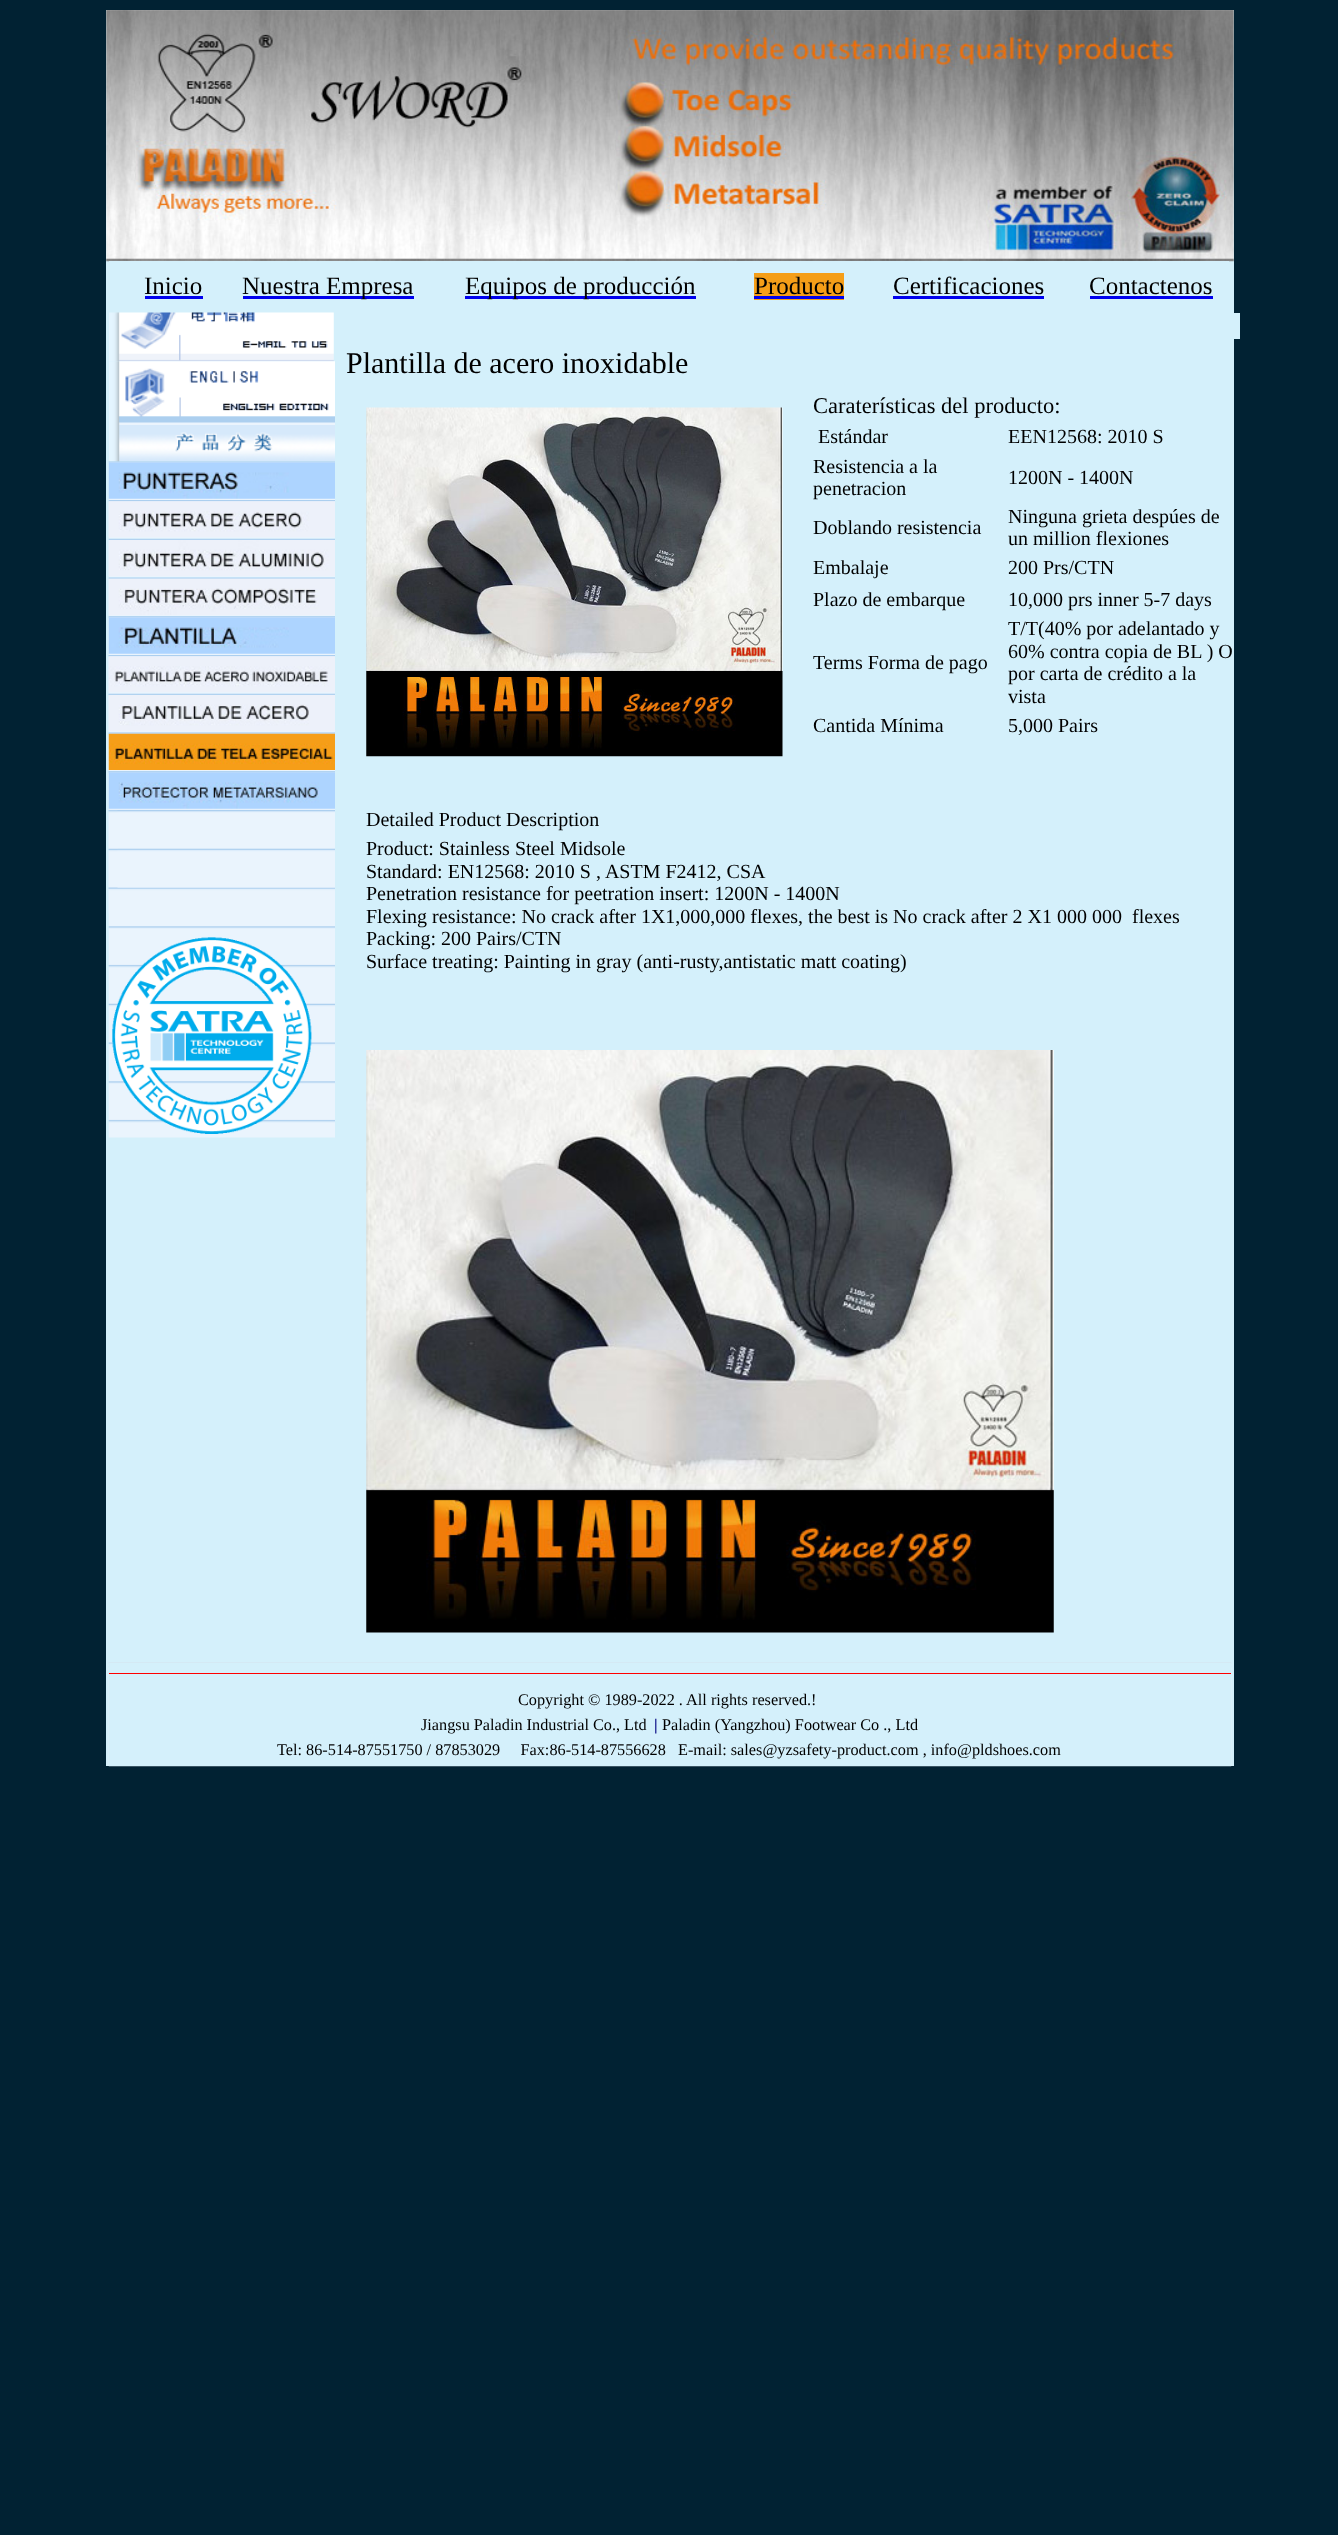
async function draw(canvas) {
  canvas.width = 1338;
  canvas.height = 2535;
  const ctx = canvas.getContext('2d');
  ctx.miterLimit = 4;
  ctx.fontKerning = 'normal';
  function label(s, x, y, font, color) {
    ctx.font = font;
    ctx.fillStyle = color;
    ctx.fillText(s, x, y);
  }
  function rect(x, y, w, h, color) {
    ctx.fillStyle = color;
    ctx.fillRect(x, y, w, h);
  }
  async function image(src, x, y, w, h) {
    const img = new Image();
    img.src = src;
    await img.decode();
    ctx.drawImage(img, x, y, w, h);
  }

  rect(0, 0, 1338, 2535, '#012233');
  rect(106, 10, 1128, 1756, '#d4f0fb');
  await image('assets/img1.png', 106, 10, 1128, 252);
  rect(109, 261, 1120, 1, '#d4f0fb');
  label('Inicio', 144, 294, '25px Liberation Serif', '#000');
  rect(145, 296, 58, 3, '#00e');
  rect(243, 296, 171, 3, '#00e');
  label('Nuestra Empresa', 242, 294, '25px Liberation Serif', '#000');
  rect(465, 296, 231, 3, '#00e');
  label('Equipos de producción', 465, 294, '25px Liberation Serif', '#000');
  rect(754, 273, 90, 27, '#f59e18');
  label('Producto', 754, 294, '25px Liberation Serif', '#000');
  rect(754, 296, 90, 3, '#00e');
  label('Certificaciones', 893, 294, '25px Liberation Serif', '#000');
  rect(893, 296, 151, 3, '#00e');
  label('Contactenos', 1089, 294, '25px Liberation Serif', '#000');
  rect(1090, 296, 123, 3, '#00e');
  await image('assets/img2.png', 109, 312, 225, 50);
  await image('assets/img3.png', 109, 361, 226, 64);
  await image('assets/img5.png', 108, 461, 227, 39);
  await image('assets/img4.png', 109, 425, 226, 37);
  await image('assets/img6.png', 108, 462, 227, 37);
  await image('assets/img7.png', 108, 500, 227, 39);
  await image('assets/img8.png', 108, 501, 227, 36);
  await image('assets/img9.png', 108, 538, 227, 40);
  await image('assets/img10.png', 108, 540, 227, 36);
  await image('assets/img11.png', 108, 577, 227, 40);
  await image('assets/img12.png', 108, 578, 227, 37);
  await image('assets/img13.png', 108, 616, 227, 522);
  await image('assets/img14.png', 108, 616, 227, 39);
  await image('assets/img15.png', 108, 617, 227, 37);
  await image('assets/img16.png', 108, 655, 227, 39);
  await image('assets/img17.png', 108, 656, 227, 36);
  await image('assets/img18.png', 108, 693, 227, 40);
  await image('assets/img19.png', 108, 695, 227, 36);
  await image('assets/img20.png', 108, 732, 227, 40);
  await image('assets/img21.png', 108, 733, 227, 37);
  await image('assets/img22.png', 108, 771, 227, 142);
  await image('assets/img23.png', 108, 771, 227, 1);
  await image('assets/img24.png', 108, 772, 227, 37);
  await image('assets/img25.png', 117, 810, 218, 39);
  await image('assets/img26.png', 117, 848, 218, 40);
  await image('assets/img27.png', 112, 937, 200, 197);
  rect(1234, 313, 6, 26, '#d4f0fb');
  label('Plantilla de acero inoxidable', 346, 373, '30px Liberation Serif', '#000');
  await image('assets/img28.png', 366, 407, 417, 350);
  label('Caraterísticas del producto:', 813, 413, '22.5px Liberation Serif', '#000');
  label('Estándar', 818, 443, '20px Liberation Serif', '#000');
  label('EEN12568: 2010 S', 1008, 443, '20px Liberation Serif', '#000');
  label('Resistencia a la', 813, 473, '20px Liberation Serif', '#000');
  label('penetracion', 813, 495, '20px Liberation Serif', '#000');
  label('1200N - 1400N', 1008, 484, '20px Liberation Serif', '#000');
  label('Doblando resistencia', 813, 534, '20px Liberation Serif', '#000');
  label('Ninguna grieta despúes de', 1008, 523, '20px Liberation Serif', '#000');
  label('un million flexiones', 1008, 545, '20px Liberation Serif', '#000');
  label('Embalaje', 813, 574, '20px Liberation Serif', '#000');
  label('200 Prs/CTN', 1008, 574, '20px Liberation Serif', '#000');
  label('Plazo de embarque', 813, 606, '20px Liberation Serif', '#000');
  label('10,000 prs inner 5-7 days', 1008, 606, '20px Liberation Serif', '#000');
  label('Terms Forma de pago', 813, 669, '20px Liberation Serif', '#000');
  label('T/T(40% por adelantado y', 1008, 635, '20px Liberation Serif', '#000');
  label('60% contra copia de BL ) O', 1008, 658, '20px Liberation Serif', '#000');
  label('por carta de crédito a la', 1008, 680, '20px Liberation Serif', '#000');
  label('vista', 1008, 703, '20px Liberation Serif', '#000');
  label('Cantida Mínima', 813, 732, '20px Liberation Serif', '#000');
  label('5,000 Pairs', 1008, 732, '20px Liberation Serif', '#000');
  label('Detailed Product Description', 366, 826, '20px Liberation Serif', '#000');
  label('Product: Stainless Steel Midsole', 366, 855, '20px Liberation Serif', '#000');
  label('Standard: EN12568: 2010 S , ASTM F2412, CSA', 366, 878, '20px Liberation Serif', '#000');
  label('Penetration resistance for peetration insert: 1200N - 1400N', 366, 900, '20px Liberation Serif', '#000');
  label('Flexing resistance: No crack after 1X1,000,000 flexes, the best is No crack after 2 X1 000 000', 366, 923, '20px Liberation Serif', '#000');
  label('flexes', 1132, 923, '20px Liberation Serif', '#000');
  label('Packing: 200 Pairs/CTN', 366, 945, '20px Liberation Serif', '#000');
  label('Surface treating: Painting in gray (anti-rusty,antistatic matt coating)', 366, 968, '20px Liberation Serif', '#000');
  await image('assets/img29.png', 366, 1050, 688, 583);
  await image('assets/img30.png', 108, 1662, 1124, 105);
  rect(109, 1663, 1122, 103, '#d4f0fb');
  rect(109, 1673, 1122, 1, '#f00');
  label('Copyright © 1989-2022 . All rights reserved.!', 518, 1705, '16.25px Liberation Serif', '#000');
  label('Jiangsu Paladin Industrial Co., Ltd', 421, 1730, '16.25px Liberation Serif', '#000');
  label('|', 654, 1730, 'bold 16.25px Liberation Serif', '#000080');
  label('Paladin (Yangzhou) Footwear Co ., Ltd', 662, 1730, '16.25px Liberation Serif', '#000');
  label('Tel: 86-514-87551750 / 87853029     Fax:86-514-87556628', 277, 1755, '16.25px Liberation Serif', '#000');
  label('E-mail: sales@yzsafety-product.com , info@pldshoes.com', 678, 1755, '16.25px Liberation Serif', '#000');
}

draw(document.querySelector('canvas'));
